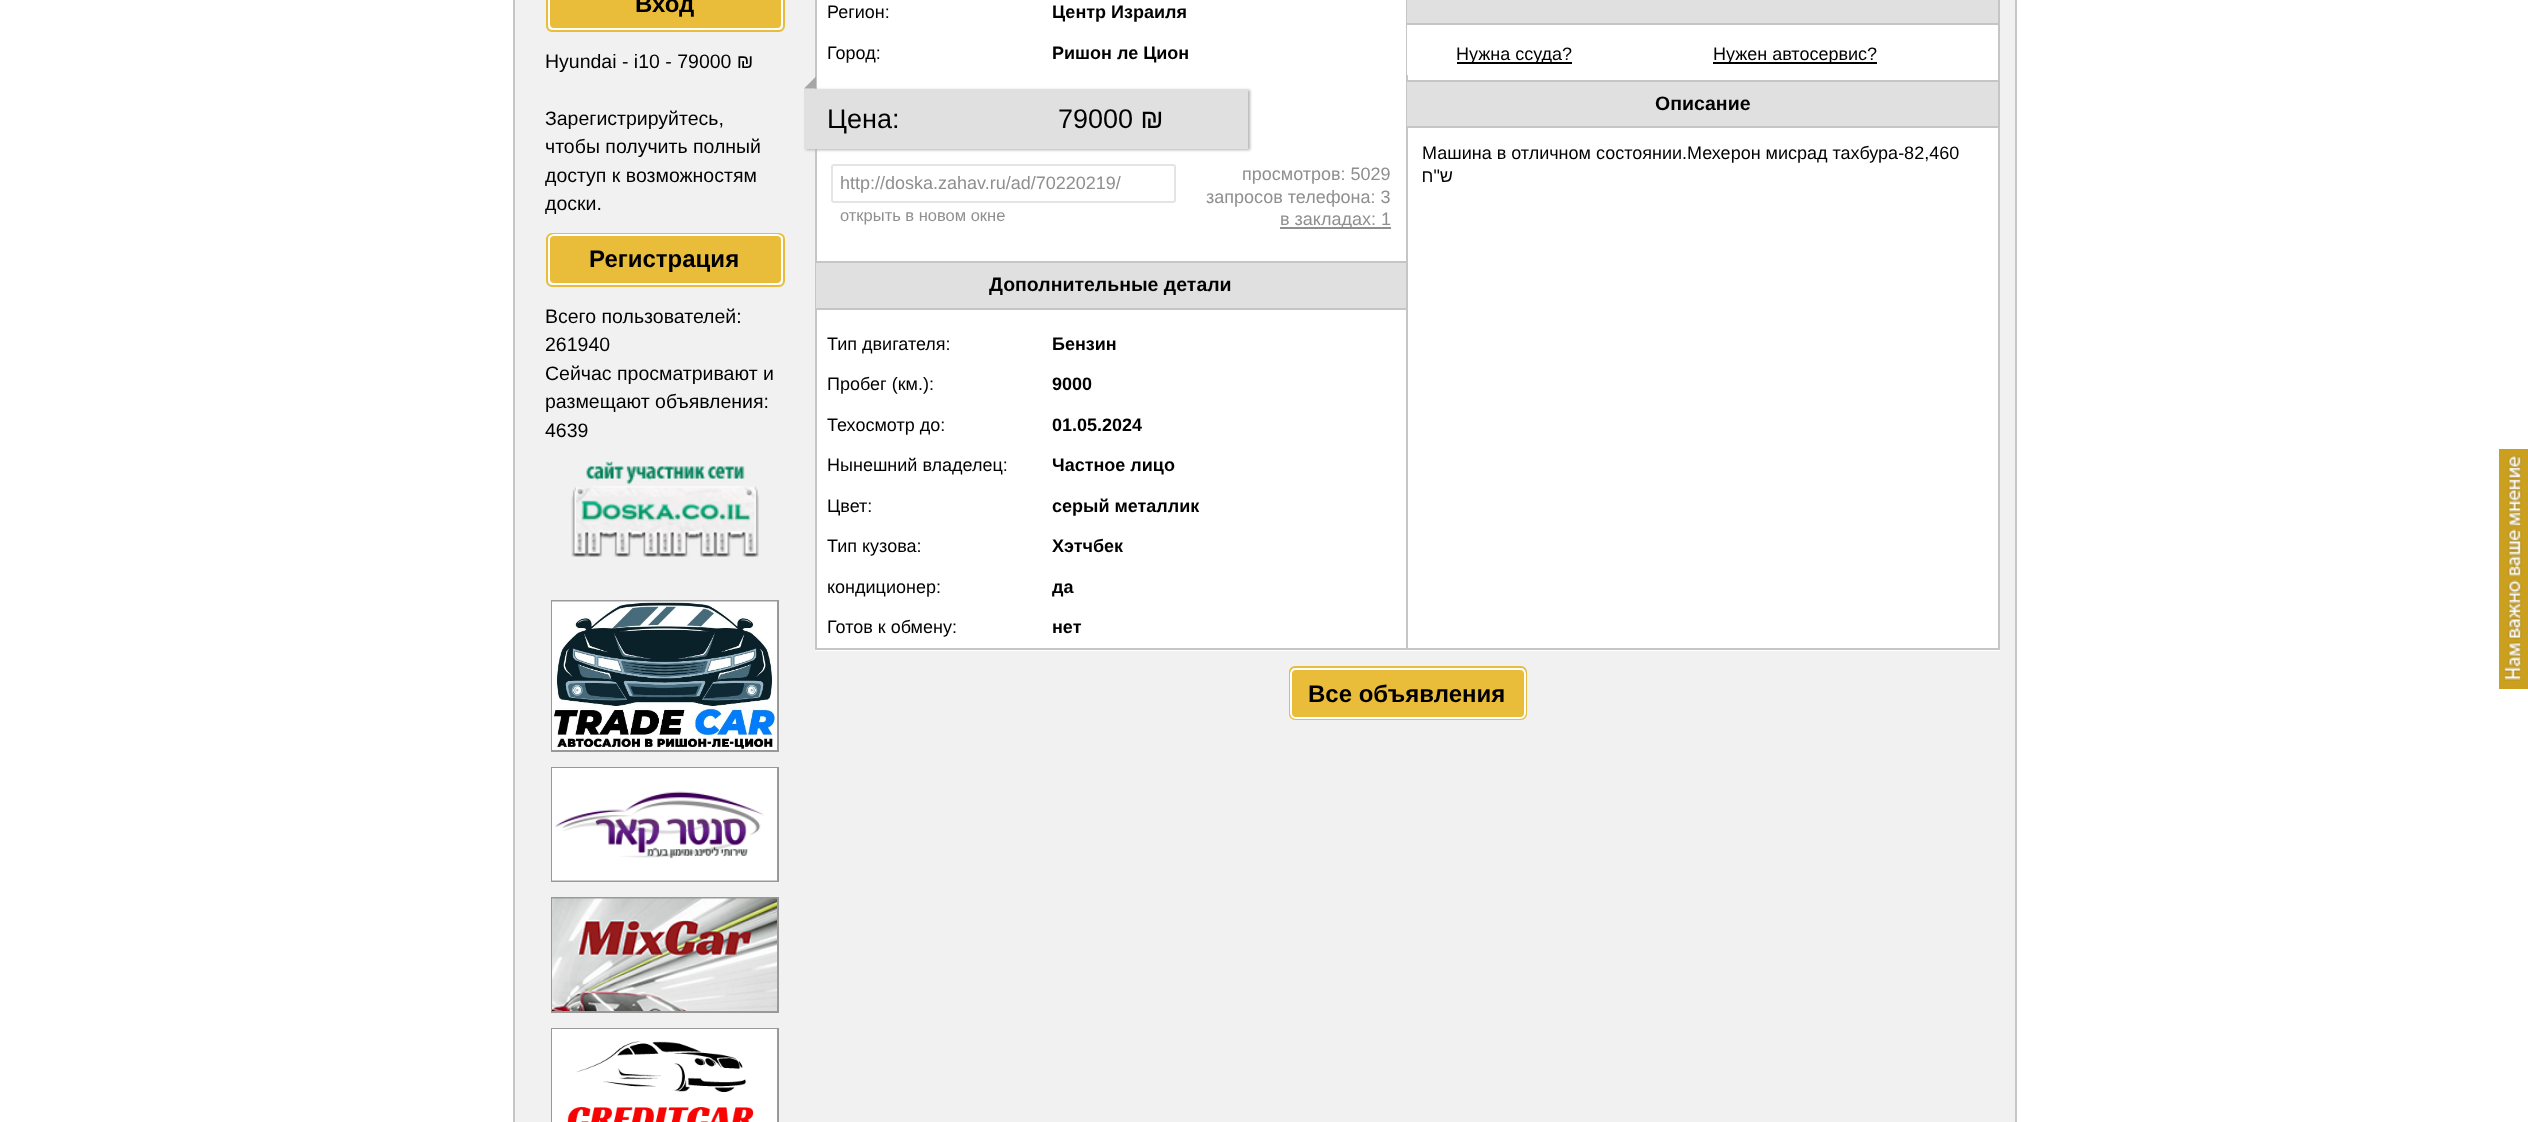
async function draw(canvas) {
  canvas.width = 2528;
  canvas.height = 1122;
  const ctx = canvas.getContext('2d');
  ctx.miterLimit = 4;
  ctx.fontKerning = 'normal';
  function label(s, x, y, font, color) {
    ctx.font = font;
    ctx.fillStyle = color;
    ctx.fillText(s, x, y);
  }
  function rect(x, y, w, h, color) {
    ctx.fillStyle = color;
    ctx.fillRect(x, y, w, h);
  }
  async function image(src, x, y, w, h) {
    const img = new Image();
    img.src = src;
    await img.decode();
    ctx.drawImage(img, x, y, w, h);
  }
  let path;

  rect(0, 0, 2528, 1122, '#fff');
  rect(515, 0, 1500, 1122, '#f1f1f1');
  rect(2015, 0, 2, 1122, '#c6c6c6');
  rect(513, 0, 2, 1122, '#c6c6c6');
  ctx.beginPath();
  ctx.roundRect(547, -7, 237, 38, 5);
  ctx.strokeStyle = '#e9bc3a';
  ctx.lineWidth = 2;
  ctx.stroke();
  ctx.fillStyle = '#e9bc3a';
  ctx.beginPath();
  ctx.roundRect(549, -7, 233, 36, 5);
  ctx.fill();
  ctx.strokeStyle = '#fff';
  ctx.stroke();
  label('Вход', 635, 12, 'bold 24px Liberation Sans', '#000');
  label('Hyundai - i10 - 79000 ₪', 545, 68, '19.5px Liberation Sans', '#000');
  label('Зарегистрируйтесь,', 545, 125, '19.5px Liberation Sans', '#000');
  label('чтобы получить полный', 545, 153, '19.5px Liberation Sans', '#000');
  label('доступ к возможностям', 545, 182, '19.5px Liberation Sans', '#000');
  label('доски.', 545, 210, '19.5px Liberation Sans', '#000');
  ctx.beginPath();
  ctx.roundRect(547, 234, 237, 52, 5);
  ctx.strokeStyle = '#e9bc3a';
  ctx.stroke();
  ctx.fillStyle = '#e9bc3a';
  ctx.beginPath();
  ctx.roundRect(549, 235, 233, 49, 5);
  ctx.fill();
  ctx.strokeStyle = '#fff';
  ctx.stroke();
  label('Регистрация', 589, 267, 'bold 24px Liberation Sans', '#000');
  label('Всего пользователей:', 545, 323, '19.5px Liberation Sans', '#000');
  label('261940', 545, 351, '19.5px Liberation Sans', '#000');
  label('Сейчас просматривают и', 545, 380, '19.5px Liberation Sans', '#000');
  label('размещают объявления:', 545, 408, '19.5px Liberation Sans', '#000');
  label('4639', 545, 437, '19.5px Liberation Sans', '#000');
  await image('assets/img1.png', 571, 461, 188, 96);
  ctx.strokeStyle = '#999';
  ctx.strokeRect(552, 601, 226, 150);
  await image('assets/img2.png', 552, 601, 225, 149);
  ctx.strokeRect(552, 768, 226, 113);
  await image('assets/img3.png', 552, 768, 225, 113);
  ctx.strokeRect(552, 898, 226, 114);
  await image('assets/img4.png', 552, 898, 225, 113);
  ctx.strokeRect(552, 1029, 226, 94);
  await image('assets/img5.png', 552, 1029, 225, 93);
  rect(815, 0, 1185, 651, '#fff');
  rect(1998, 0, 2, 650, '#c5c5c5');
  rect(1406, 648, 594, 2, '#c5c5c5');
  rect(1406, 0, 2, 650, '#c5c5c5');
  rect(815, 648, 592, 2, '#c5c5c5');
  rect(815, 0, 2, 650, '#c5c5c5');
  label('Регион:', 827, 18, '18px Liberation Sans', '#000');
  label('Центр Израиля', 1052, 18, 'bold 18px Liberation Sans', '#000');
  label('Город:', 827, 59, '18px Liberation Sans', '#000');
  label('Ришон ле Цион', 1052, 59, 'bold 18px Liberation Sans', '#000');
  ctx.fillStyle = '#b3b3b3';
  ctx.filter = 'blur(1.5px)';
  ctx.beginPath();
  ctx.rect(806, 90, 444, 60);
  ctx.fill();
  ctx.filter = 'none';
  rect(804, 89, 444, 60, '#e0e0e0');
  ctx.fillStyle = '#a7a7a7';
  path = new Path2D('M816 88.5H804L816 76.5Z');
  ctx.fill(path);
  label('Цена:', 827, 128, '27px Liberation Sans', '#000');
  label('79000 ₪', 1058, 128, '27px Liberation Sans', '#000');
  ctx.beginPath();
  ctx.roundRect(832, 165, 343, 37, 2);
  ctx.strokeStyle = '#e4e4e4';
  ctx.stroke();
  label('http://doska.zahav.ru/ad/70220219/', 840, 189, '18px Liberation Sans', '#8f8f8f');
  label('открыть в новом окне', 840, 221, '16.5px Liberation Sans', '#8f8f8f');
  label('просмотров: 5029', 1242, 180, '18px Liberation Sans', '#8f8f8f');
  label('запросов телефона: 3', 1206, 203, '18px Liberation Sans', '#8f8f8f');
  rect(1280, 227, 111, 2, '#8f8f8f');
  label('в закладах: 1', 1280, 225, '18px Liberation Sans', '#8f8f8f');
  rect(816, 263, 590, 45, '#e0e0e0');
  rect(816, 261, 590, 2, '#c5c5c5');
  rect(816, 308, 590, 2, '#c5c5c5');
  label('Дополнительные детали', 989, 291, 'bold 19.5px Liberation Sans', '#000');
  label('Тип двигателя:', 827, 350, '18px Liberation Sans', '#000');
  label('Бензин', 1052, 350, 'bold 18px Liberation Sans', '#000');
  label('Пробег (км.):', 827, 390, '18px Liberation Sans', '#000');
  label('9000', 1052, 390, 'bold 18px Liberation Sans', '#000');
  label('Техосмотр до:', 827, 431, '18px Liberation Sans', '#000');
  label('01.05.2024', 1052, 431, 'bold 18px Liberation Sans', '#000');
  label('Нынешний владелец:', 827, 471, '18px Liberation Sans', '#000');
  label('Частное лицо', 1052, 471, 'bold 18px Liberation Sans', '#000');
  label('Цвет:', 827, 512, '18px Liberation Sans', '#000');
  label('серый металлик', 1052, 512, 'bold 18px Liberation Sans', '#000');
  label('Тип кузова:', 827, 552, '18px Liberation Sans', '#000');
  label('Хэтчбек', 1052, 552, 'bold 18px Liberation Sans', '#000');
  label('кондиционер:', 827, 593, '18px Liberation Sans', '#000');
  label('да', 1052, 593, 'bold 18px Liberation Sans', '#000');
  label('Готов к обмену:', 827, 633, '18px Liberation Sans', '#000');
  label('нет', 1052, 633, 'bold 18px Liberation Sans', '#000');
  rect(1407, 25, 1, 50, '#fff');
  rect(1407, 0, 591, 23, '#e0e0e0');
  rect(1407, 23, 591, 2, '#c5c5c5');
  rect(1457, 62, 115, 2, '#000');
  label('Нужна ссуда?', 1456, 60, '18px Liberation Sans', '#000');
  rect(1713, 62, 164, 2, '#000');
  label('Нужен автосервис?', 1713, 60, '18px Liberation Sans', '#000');
  rect(1407, 82, 591, 44, '#e0e0e0');
  rect(1407, 80, 591, 2, '#c5c5c5');
  rect(1407, 126, 591, 2, '#c5c5c5');
  label('Описание', 1655, 110, 'bold 19.5px Liberation Sans', '#000');
  label('Машина в отличном состоянии.Мехерон мисрад тахбура-82,460', 1422, 159, '18px Liberation Sans', '#000');
  ctx.direction = 'rtl';
  label('ש"ח', 1453, 182, '18px Liberation Sans', '#000');
  ctx.beginPath();
  ctx.roundRect(1290, 667, 236, 52, 5);
  ctx.strokeStyle = '#e9bc3a';
  ctx.stroke();
  ctx.fillStyle = '#e9bc3a';
  ctx.beginPath();
  ctx.roundRect(1291, 669, 234, 49, 5);
  ctx.fill();
  ctx.strokeStyle = '#fff';
  ctx.stroke();
  ctx.direction = 'ltr';
  label('Все объявления', 1308, 702, 'bold 24px Liberation Sans', '#000');
  rect(2499, 449, 29, 240, '#cca01f');
  await image('assets/img6.png', 2503, 455, 19, 226);
}

draw(document.querySelector('canvas'));
